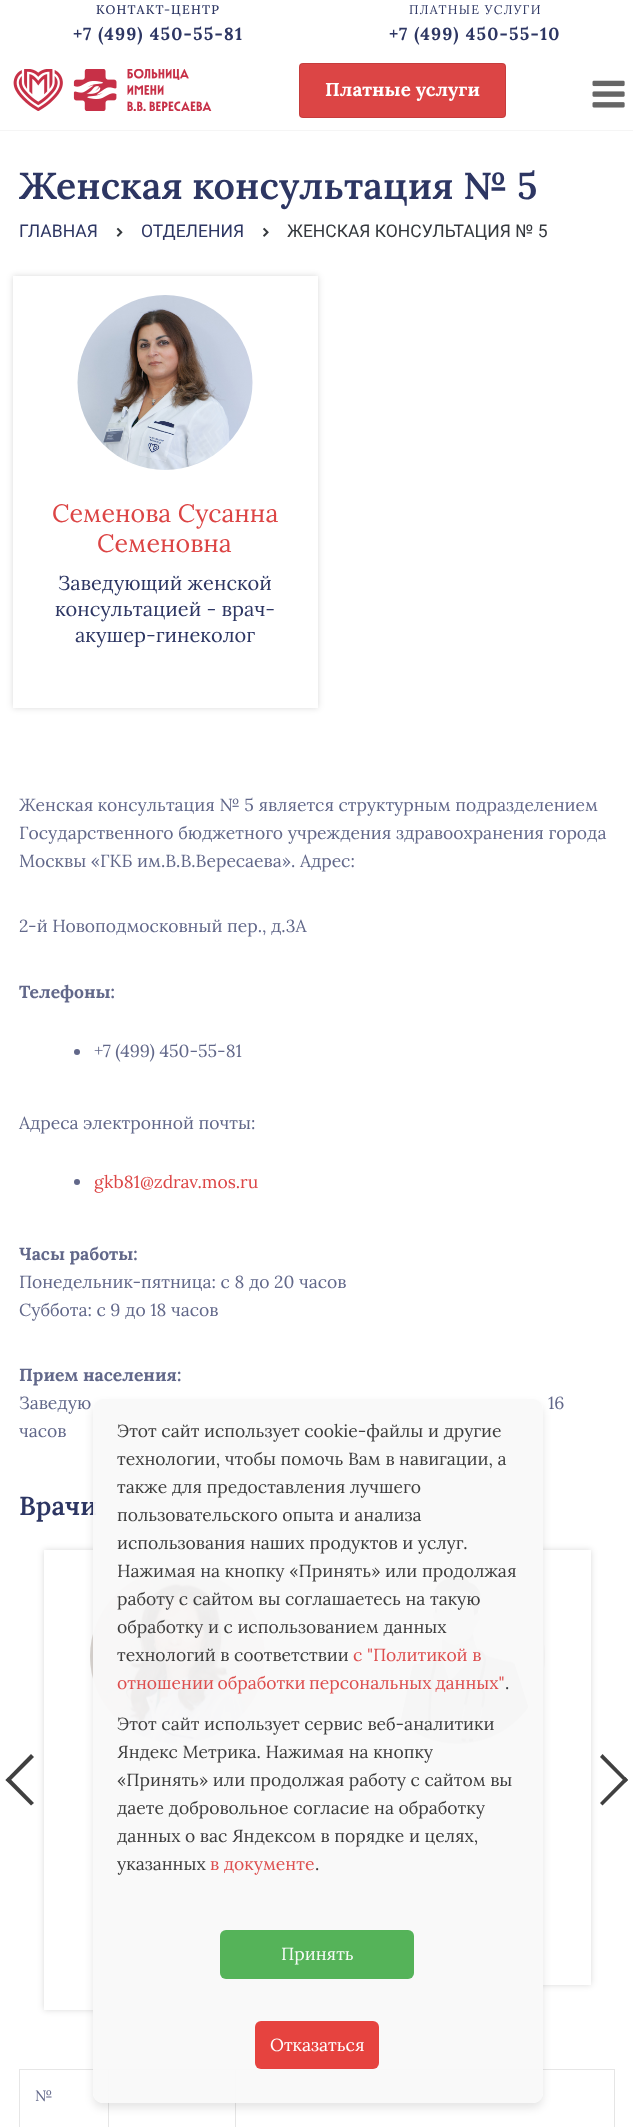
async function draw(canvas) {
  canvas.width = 633;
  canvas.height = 2127;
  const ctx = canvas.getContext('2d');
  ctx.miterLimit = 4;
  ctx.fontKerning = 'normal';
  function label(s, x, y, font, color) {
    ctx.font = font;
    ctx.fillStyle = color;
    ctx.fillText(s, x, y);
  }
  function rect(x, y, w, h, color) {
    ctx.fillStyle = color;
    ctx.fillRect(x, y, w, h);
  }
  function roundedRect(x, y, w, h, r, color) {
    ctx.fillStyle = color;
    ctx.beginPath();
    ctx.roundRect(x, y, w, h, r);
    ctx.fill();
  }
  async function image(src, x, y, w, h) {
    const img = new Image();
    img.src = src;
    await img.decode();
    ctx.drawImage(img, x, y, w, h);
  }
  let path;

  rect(0, 0, 633, 2127, '#fff');
  rect(0, 130, 633, 1, '#f5f5f5');
  ctx.letterSpacing = '1.25px';
  label('КОНТАКТ-ЦЕНТР', 96, 14, '500 12.5px Lora', '#2d3663');
  label('+7 (499) 450-55-81', 73, 40, 'bold 17.5px Lora', '#2d3663');
  label('ПЛАТНЫЕ УСЛУГИ', 409, 14, '12.5px Lora', '#2d3663');
  label('+7 (499) 450-55-10', 389, 40, 'bold 17.5px Lora', '#2d3663');
  await image('assets/img1.png', 13, 69, 199, 42);
  roundedRect(299, 63, 207, 55, 4, '#dc4545');
  ctx.beginPath();
  ctx.roundRect(299.5, 63.5, 206, 54, 3.5);
  ctx.strokeStyle = '#0000001a';
  ctx.stroke();
  ctx.letterSpacing = '0px';
  label('Платные услуги', 325, 96, 'bold 18.75px Lora', '#fff');
  await image('assets/img2.png', 592, 80, 33, 28);
  label('Женская консультация № 5', 19, 199, '600 37.5px Lora', '#2d3663');
  label('ГЛАВНАЯ', 19, 237, '17.5px Roboto', '#2d3663');
  await image('assets/img3.png', 116, 227, 7, 10);
  label('ОТДЕЛЕНИЯ', 141, 237, '17.5px Roboto', '#2d3663');
  await image('assets/img4.png', 263, 227, 6, 10);
  label('ЖЕНСКАЯ КОНСУЛЬТАЦИЯ № 5', 287, 237, '17.5px Roboto', '#35393e');
  ctx.fillStyle = '#00000026';
  ctx.filter = 'blur(3px)';
  ctx.beginPath();
  ctx.rect(13, 276, 305, 432);
  ctx.fill();
  ctx.filter = 'none';
  rect(13, 276, 305, 432, '#fff');
  await image('assets/img5.png', 77, 295, 176, 175);
  label('Семенова Сусанна', 52, 522, '25px Lora', '#dc4545');
  label('Семеновна', 97, 552, '25px Lora', '#dc4545');
  label('Заведующий женской', 58, 590, '20px Lora', '#2d3663');
  label('консультацией - врач-', 55, 616, '20px Lora', '#2d3663');
  label('акушер-гинеколог', 75, 642, '20px Lora', '#2d3663');
  label('Женская консультация № 5 является структурным подразделением', 19, 811, '17.5px Lora', '#62688a');
  label('Государственного бюджетного учреждения здравоохранения города', 19, 839, '17.5px Lora', '#62688a');
  label('Москвы «ГКБ им.В.В.Вересаева». Адрес:', 19, 867, '17.5px Lora', '#62688a');
  label('2-й Новоподмосковный пер., д.3А', 19, 932, '17.5px Lora', '#62688a');
  label('Телефоны:', 19, 998, 'bold 17.5px Lora', '#62688a');
  ctx.beginPath();
  ctx.arc(77, 1052, 3, 0, 2 * Math.PI);
  ctx.fill();
  label('+7 (499) 450-55-81', 94, 1057, '17.5px Lora', '#62688a');
  label('Адреса электронной почты:', 19, 1129, '17.5px Lora', '#62688a');
  ctx.beginPath();
  ctx.arc(77, 1182, 3, 0, 2 * Math.PI);
  ctx.fill();
  label('gkb81@zdrav.mos.ru', 94, 1188, '17.5px Lora', '#dc4545');
  label('Часы работы:', 19, 1260, 'bold 17.5px Lora', '#62688a');
  label('Понедельник-пятница: с 8 до 20 часов', 19, 1288, '17.5px Lora', '#62688a');
  label('Суббота: c 9 до 18 часов', 19, 1316, '17.5px Lora', '#62688a');
  label('Прием населения:', 19, 1381, 'bold 17.5px Lora', '#62688a');
  label('Заведую', 19, 1409, '17.5px Lora', '#62688a');
  label('16', 548, 1409, '17.5px Lora', '#62688a');
  label('часов', 19, 1437, '17.5px Lora', '#62688a');
  label('Врачи', 19, 1515, '600 26px Lora', '#2d3663');
  ctx.fillStyle = '#404040';
  path = new Path2D('M34 1803L31 1805.5L5.5 1780L8.5 1777Z');
  ctx.fill(path);
  path = new Path2D('M34 1757L8.5 1782.5L5.5 1780L31 1754Z');
  ctx.fill(path);
  ctx.save();
  path = new Path2D('M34 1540H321V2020H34ZM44 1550H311V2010H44Z');
  ctx.clip(path, 'evenodd');
  ctx.fillStyle = '#00000026';
  ctx.filter = 'blur(3px)';
  ctx.beginPath();
  ctx.rect(44, 1550, 267, 460);
  ctx.fill();
  ctx.filter = 'none';
  ctx.restore();
  await image('assets/img6.png', 90, 1568, 175, 177);
  ctx.save();
  path = new Path2D('M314 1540H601V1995H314ZM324 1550H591V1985H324Z');
  ctx.clip(path, 'evenodd');
  ctx.fillStyle = '#00000026';
  ctx.filter = 'blur(3px)';
  ctx.beginPath();
  ctx.rect(324, 1550, 267, 435);
  ctx.fill();
  ctx.filter = 'none';
  ctx.restore();
  await image('assets/img7.png', 400, 1576, 145, 169);
  path = new Path2D('M600 1757L602.5 1754L628 1780L625.5 1782.5Z');
  ctx.fill(path);
  path = new Path2D('M600 1803L625.5 1777L628 1780L602.5 1805.5Z');
  ctx.fill(path);
  ctx.strokeStyle = '#e6e6e6';
  ctx.strokeRect(19.5, 2069.5, 89, 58);
  label('№', 35, 2101, '15px Lora', '#62688a');
  ctx.fillStyle = '#e6e6e6';
  path = new Path2D('M109 2069H236L235 2070H109Z');
  ctx.fill(path);
  ctx.fillStyle = '#0000001a';
  path = new Path2D('M236 2069V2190L235 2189V2070Z');
  ctx.fill(path);
  ctx.fillStyle = '#e6e6e6';
  path = new Path2D('M236 2069H615L614 2070H236Z');
  ctx.fill(path);
  ctx.fillStyle = '#0000001a';
  path = new Path2D('M615 2069V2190L614 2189V2070Z');
  ctx.fill(path);
  ctx.save();
  path = new Path2D('M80 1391H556V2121H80ZM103 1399H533C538.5 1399 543 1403.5 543 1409V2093C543 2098.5 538.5 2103 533 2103H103C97.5 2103 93 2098.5 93 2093V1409C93 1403.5 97.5 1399 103 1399Z');
  ctx.clip(path, 'evenodd');
  ctx.filter = 'blur(4px)';
  ctx.beginPath();
  ctx.roundRect(93, 1404, 450, 704, 10);
  ctx.fill();
  ctx.filter = 'none';
  ctx.restore();
  roundedRect(93, 1399, 450, 704, 10, '#f9f9f9f2');
  label('Этот сайт использует cookie-файлы и другие', 117, 1437, '17.5px Lora', '#3d3d3d');
  label('технологии, чтобы помочь Вам в навигации, а', 117, 1465, '17.5px Lora', '#3d3d3d');
  label('также для предоставления лучшего', 117, 1493, '17.5px Lora', '#3d3d3d');
  label('пользовательского опыта и анализа', 117, 1521, '17.5px Lora', '#3d3d3d');
  label('использования наших продуктов и услуг.', 117, 1549, '17.5px Lora', '#3d3d3d');
  label('Нажимая на кнопку «Принять» или продолжая', 117, 1577, '17.5px Lora', '#3d3d3d');
  label('работу с сайтом вы соглашаетесь на такую', 117, 1605, '17.5px Lora', '#3d3d3d');
  label('обработку и с использованием данных', 117, 1633, '17.5px Lora', '#3d3d3d');
  label('технологий в соответствии', 117, 1661, '17.5px Lora', '#3d3d3d');
  label('с "Политикой в', 353, 1661, '17.5px Lora', '#dd4e4e');
  ctx.wordSpacing = '-1px';
  label('отношении обработки персональных данных"', 117, 1689, '17.5px Lora', '#dd4e4e');
  ctx.wordSpacing = '0px';
  label('.', 505, 1689, '17.5px Lora', '#35393e');
  label('Этот сайт использует сервис веб-аналитики', 117, 1730, '17.5px Lora', '#3d3d3d');
  label('Яндекс Метрика. Нажимая на кнопку', 117, 1758, '17.5px Lora', '#3d3d3d');
  label('«Принять» или продолжая работу с сайтом вы', 117, 1786, '17.5px Lora', '#3d3d3d');
  label('даете добровольное согласие на обработку', 117, 1814, '17.5px Lora', '#3d3d3d');
  label('данных о вас Яндексом в порядке и целях,', 117, 1842, '17.5px Lora', '#3d3d3d');
  label('указанных', 117, 1870, '17.5px Lora', '#3d3d3d');
  label('в документе', 210, 1870, '17.5px Lora', '#dd4e4e');
  label('.', 315, 1870, '17.5px Lora', '#3d3d3d');
  roundedRect(220, 1930, 194, 49, 6, '#4caf50f2');
  label('Принять', 281, 1960, '17.5px Lora', '#f6fbf7');
  roundedRect(255, 2021, 124, 48, 6, '#e6433f');
  label('Отказаться', 270, 2051, '17.5px Lora', '#fff');
}

draw(document.querySelector('canvas'));
